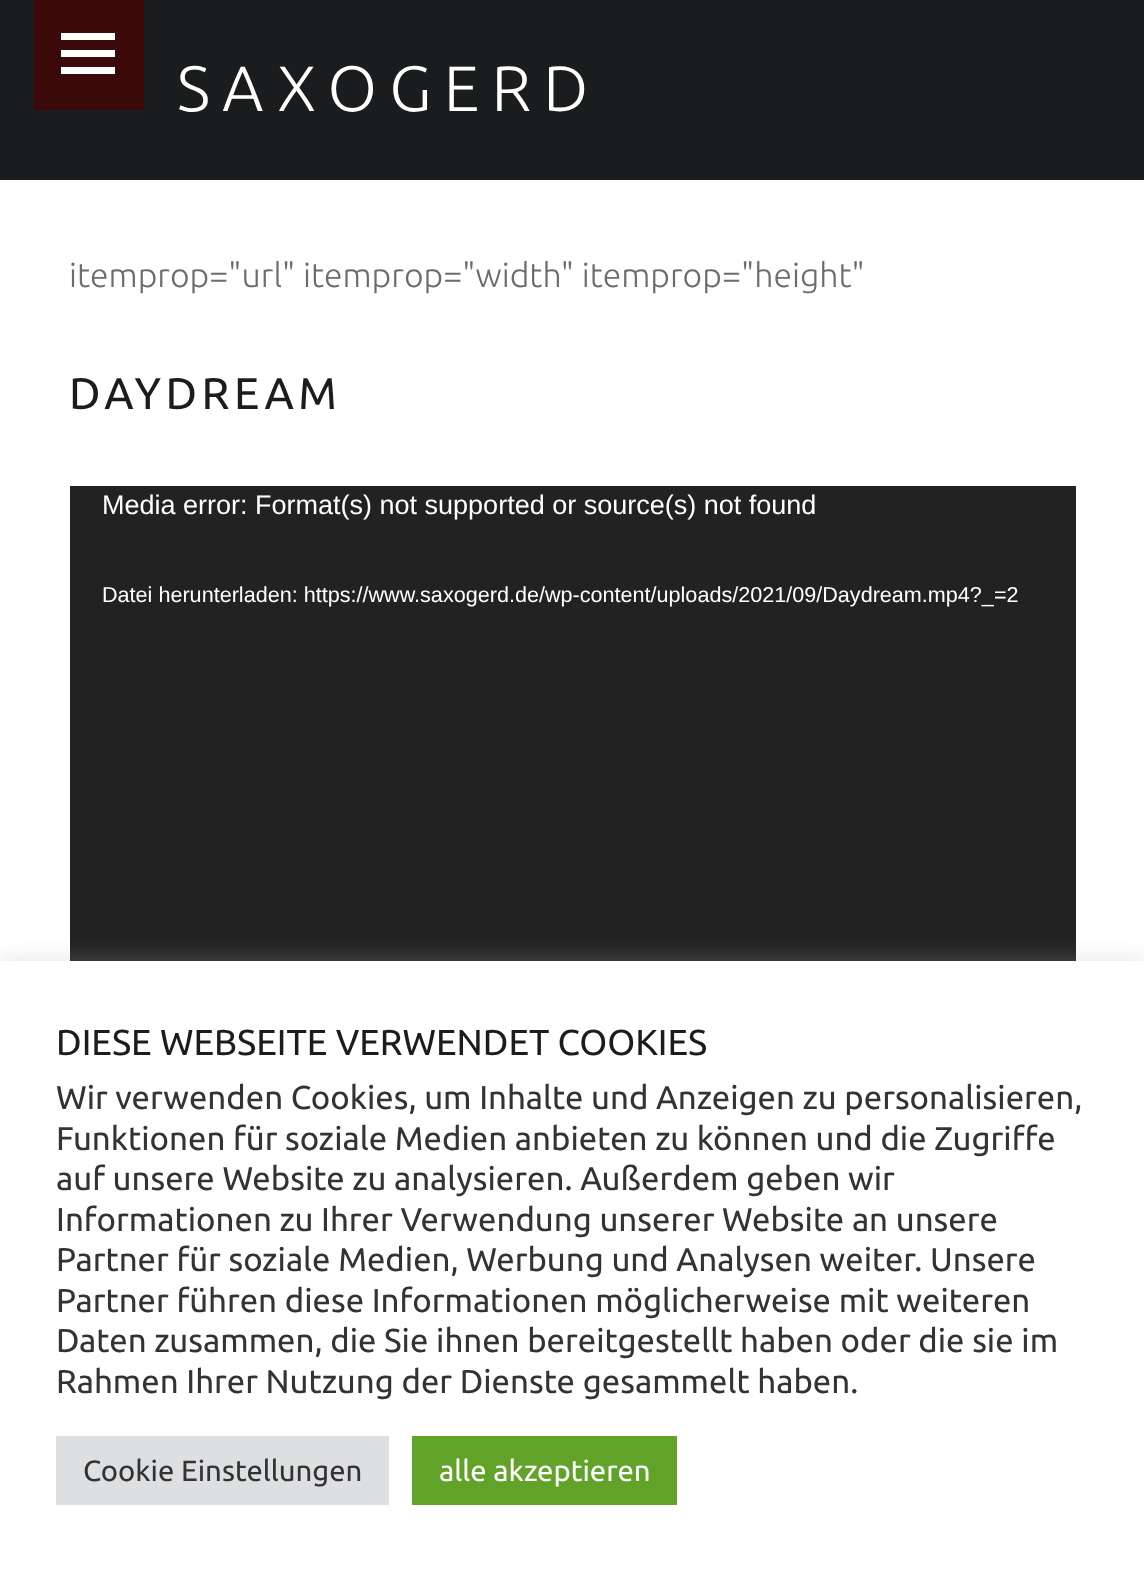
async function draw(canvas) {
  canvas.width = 1144;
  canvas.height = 1572;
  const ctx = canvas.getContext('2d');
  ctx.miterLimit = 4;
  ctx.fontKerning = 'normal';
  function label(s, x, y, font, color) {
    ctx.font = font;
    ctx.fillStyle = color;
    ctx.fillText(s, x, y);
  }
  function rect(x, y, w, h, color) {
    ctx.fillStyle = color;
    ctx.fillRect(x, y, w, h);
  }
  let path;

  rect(0, 0, 1144, 1572, '#fff');
  rect(0, 0, 1144, 180, '#1a1c1e');
  rect(34, 0, 110, 110, '#3b090a');
  ctx.fillStyle = '#fff';
  path = new Path2D('M61 74V67H115V74ZM61 33H115V40H61ZM61 57V50H115V57Z');
  ctx.fill(path);
  ctx.letterSpacing = '12.25px';
  label('SAXOGERD', 177, 111, '300 64px Ubuntu', '#fff');
  ctx.letterSpacing = '0px';
  label('itemprop="url" itemprop="width" itemprop="height"', 69, 287, '300 33.75px Ubuntu', '#6a6c6e');
  ctx.letterSpacing = '4.5px';
  label('DAYDREAM', 69, 409, '44.25px Ubuntu', '#1a1c1e');
  rect(70, 486, 1006, 475, '#222');
  ctx.letterSpacing = '0px';
  label('Media error: Format(s) not supported or source(s) not found', 102, 514, '27px Liberation Sans', '#fff');
  label('Datei herunterladen: https://www.saxogerd.de/wp-content/uploads/2021/09/Daydream.mp4?_=2', 102, 602, '21.6px Liberation Sans', '#fff');
  ctx.fillStyle = '#acabab4d';
  ctx.filter = 'blur(11px)';
  ctx.beginPath();
  ctx.rect(0, 959, 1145, 612);
  ctx.fill();
  ctx.filter = 'none';
  rect(0, 961, 1144, 611, '#fff');
  label('DIESE WEBSEITE VERWENDET COOKIES', 56, 1055, '36px Ubuntu', '#1a1c1e');
  label('Wir verwenden Cookies, um Inhalte und Anzeigen zu personalisieren,', 56, 1109, '33px Ubuntu', '#333');
  label('Funktionen für soziale Medien anbieten zu können und die Zugriffe', 56, 1150, '33px Ubuntu', '#333');
  label('auf unsere Website zu analysieren. Außerdem geben wir', 56, 1190, '33px Ubuntu', '#333');
  label('Informationen zu Ihrer Verwendung unserer Website an unsere', 56, 1231, '33px Ubuntu', '#333');
  label('Partner für soziale Medien, Werbung und Analysen weiter. Unsere', 56, 1271, '33px Ubuntu', '#333');
  label('Partner führen diese Informationen möglicherweise mit weiteren', 56, 1312, '33px Ubuntu', '#333');
  label('Daten zusammen, die Sie ihnen bereitgestellt haben oder die sie im', 56, 1352, '33px Ubuntu', '#333');
  label('Rahmen Ihrer Nutzung der Dienste gesammelt haben.', 56, 1393, '33px Ubuntu', '#333');
  rect(56, 1436, 333, 69, '#dedfe0');
  label('Cookie Einstellungen', 83, 1481, '29.25px Ubuntu', '#333');
  rect(412, 1436, 265, 69, '#61a229');
  label('alle akzeptieren', 439, 1481, '29.25px Ubuntu', '#fff');
}

draw(document.querySelector('canvas'));
